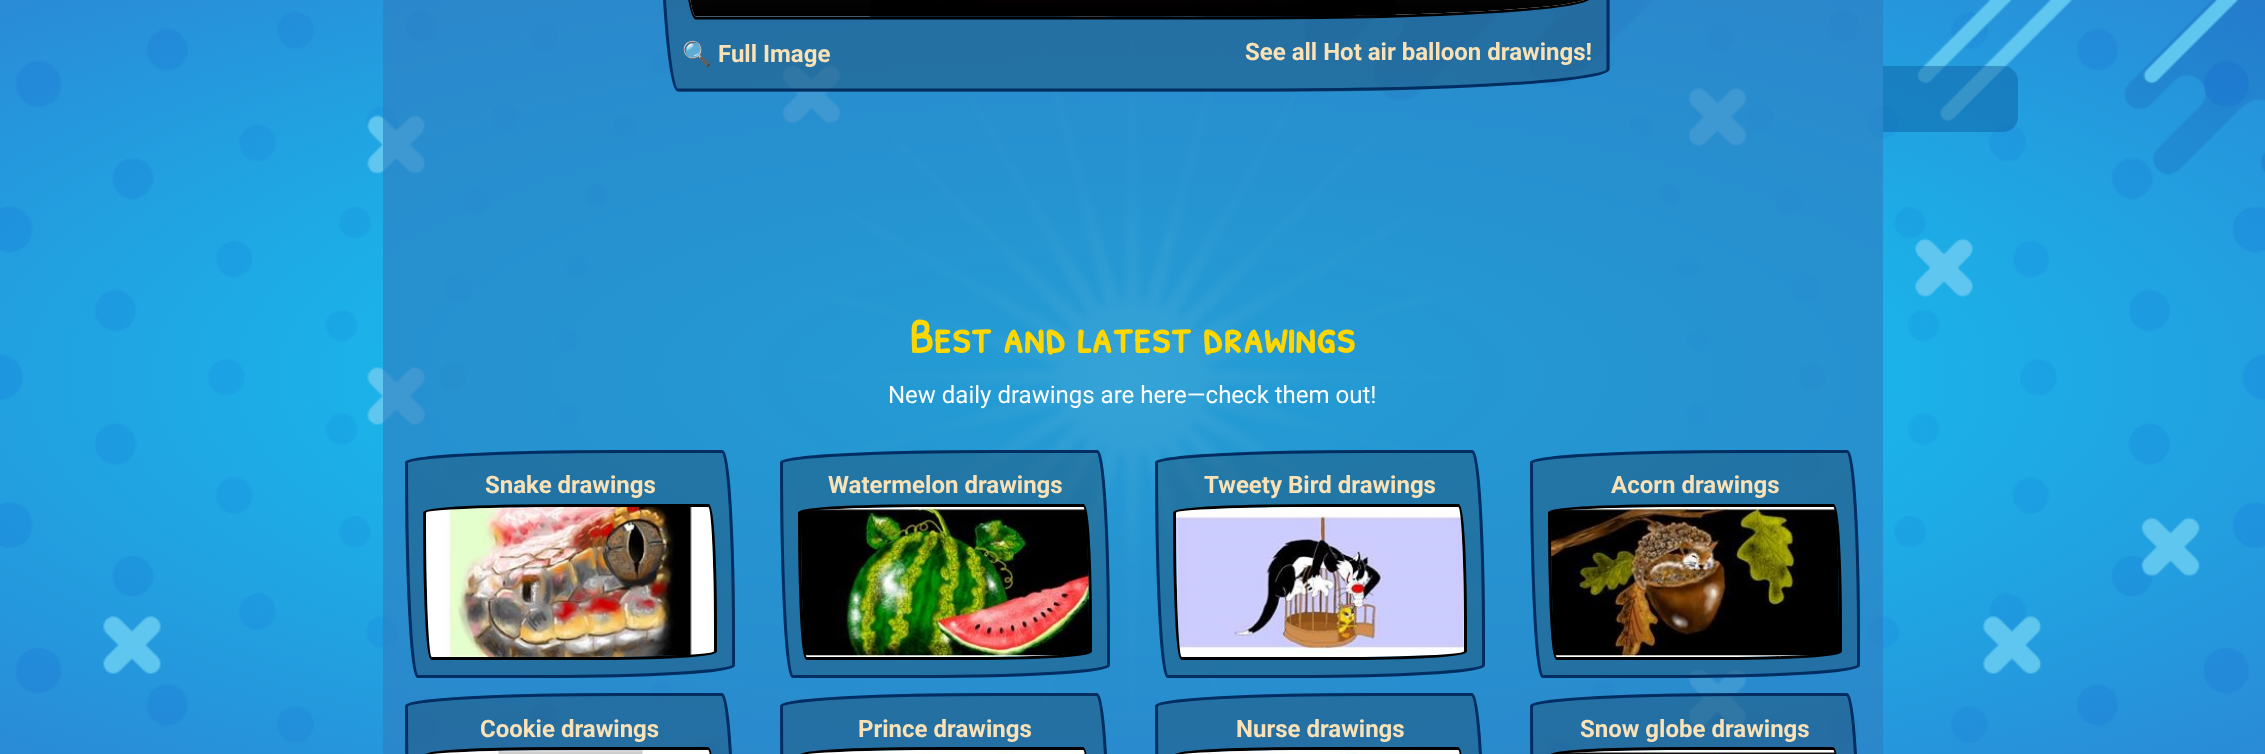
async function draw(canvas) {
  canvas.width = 2265;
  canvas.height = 754;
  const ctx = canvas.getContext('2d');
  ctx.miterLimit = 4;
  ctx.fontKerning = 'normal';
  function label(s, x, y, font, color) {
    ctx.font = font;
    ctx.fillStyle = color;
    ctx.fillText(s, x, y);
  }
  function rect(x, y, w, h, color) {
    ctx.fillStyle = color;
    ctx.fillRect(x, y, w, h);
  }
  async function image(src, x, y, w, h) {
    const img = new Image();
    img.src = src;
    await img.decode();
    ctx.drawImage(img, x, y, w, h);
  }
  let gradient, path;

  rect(0, 0, 2265, 754, '#fff');
  gradient = ctx.createRadialGradient(1133, 1131, 0, 1133, 1131, 1602);
  gradient.addColorStop(0, '#0ed6f9');
  gradient.addColorStop(1, '#2a8ad6');
  ctx.fillStyle = gradient;
  ctx.beginPath();
  ctx.rect(0, 0, 2265, 754);
  ctx.save();
  ctx.clip();
  ctx.scale(1, 534 / 1602);
  ctx.fillRect(0, 0, 2265, 2262);
  ctx.restore();
  await image('assets/img1.png', 0, 0, 2265, 754);
  rect(383, 0, 1500, 754, '#2d80c2a8');
  ctx.fillStyle = '#1f466566';
  path = new Path2D('M1038-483H1587C1599-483 1610-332 1610-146V69C1610 81 1458 92 1272 92H678C666 92 656-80 656-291V-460C656-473 827-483 1038-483Z');
  ctx.fill(path);
  path = new Path2D('M1038-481.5H1587C1598.5-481.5 1608-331 1608-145.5V69C1608 80.5 1457.5 90 1272 90H678C666.5 90 657-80.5 657-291V-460.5C657-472 827.5-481.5 1038-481.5Z');
  ctx.strokeStyle = '#002e63';
  ctx.lineWidth = 3;
  ctx.stroke(path);
  path = new Path2D('M1056-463.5H1569C1580.5-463.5 1590-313 1590-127.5V-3C1590 8.5 1439.5 18 1254 18H696C684.5 18 675-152.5 675-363V-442.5C675-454 845.5-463.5 1056-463.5Z');
  ctx.strokeStyle = '#000';
  ctx.stroke(path);
  await image('assets/img2.png', 690, 0, 894, 17);
  label('🔍', 682, 62, 'bold 24px Noto Color Emoji', '#fae2b6');
  label('Full Image', 718, 62, 'bold 24px Roboto', '#fae2b6');
  label('See all Hot air balloon drawings!', 1245, 60, 'bold 24px Roboto', '#fae2b6');
  label('Best and latest drawings', 909, 353, 'bold 48px Patrick Hand SC', '#ffd700');
  label('New daily drawings are here—check them out!', 888, 403, '24px Roboto', '#fff');
  ctx.fillStyle = '#1f466566';
  path = new Path2D('M620 450H722C729 450 735 535 735 640V665C735 672 650 678 545 678H418C411 678 405 582 405 463C405 456 501 450 620 450Z');
  ctx.fill(path);
  path = new Path2D('M620.5 451.5H722.5C728.5 451.5 733.5 536 733.5 640V665.5C733.5 671.5 649 676.5 545 676.5H417.5C411.5 676.5 406.5 581 406.5 462.5C406.5 456.5 502 451.5 620.5 451.5Z');
  ctx.strokeStyle = '#002e63';
  ctx.stroke(path);
  label('Snake drawings', 485, 493, 'bold 24px Roboto', '#fae2b6');
  path = new Path2D('M570.5 505.5H708.5C712.5 505.5 715.5 563 715.5 634V651.5C715.5 655.5 658 658.5 587 658.5H431.5C427.5 658.5 424.5 593 424.5 512.5C424.5 508.5 490 505.5 570.5 505.5Z');
  ctx.strokeStyle = '#000';
  ctx.stroke(path);
  await image('assets/img3.png', 426, 507, 288, 150);
  ctx.fillStyle = '#1f466566';
  path = new Path2D('M995 450H1097C1104 450 1110 535 1110 640V665C1110 672 1025 678 920 678H793C786 678 780 582 780 463C780 456 876 450 995 450Z');
  ctx.fill(path);
  path = new Path2D('M995.5 451.5H1097.5C1103.5 451.5 1108.5 536 1108.5 640V665.5C1108.5 671.5 1024 676.5 920 676.5H792.5C786.5 676.5 781.5 581 781.5 462.5C781.5 456.5 877 451.5 995.5 451.5Z');
  ctx.strokeStyle = '#002e63';
  ctx.stroke(path);
  label('Watermelon drawings', 828, 493, 'bold 24px Roboto', '#fae2b6');
  path = new Path2D('M945.5 505.5H1083.5C1087.5 505.5 1090.5 563 1090.5 634V651.5C1090.5 655.5 1033 658.5 962 658.5H806.5C802.5 658.5 799.5 593 799.5 512.5C799.5 508.5 865 505.5 945.5 505.5Z');
  ctx.strokeStyle = '#000';
  ctx.stroke(path);
  await image('assets/img4.png', 801, 507, 288, 150);
  ctx.fillStyle = '#1f466566';
  path = new Path2D('M1370 450H1472C1479 450 1485 535 1485 640V665C1485 672 1400 678 1295 678H1168C1161 678 1155 582 1155 463C1155 456 1251 450 1370 450Z');
  ctx.fill(path);
  path = new Path2D('M1370.5 451.5H1472.5C1478.5 451.5 1483.5 536 1483.5 640V665.5C1483.5 671.5 1399 676.5 1295 676.5H1167.5C1161.5 676.5 1156.5 581 1156.5 462.5C1156.5 456.5 1252 451.5 1370.5 451.5Z');
  ctx.strokeStyle = '#002e63';
  ctx.stroke(path);
  label('Tweety Bird drawings', 1204, 493, 'bold 24px Roboto', '#fae2b6');
  path = new Path2D('M1320.5 505.5H1458.5C1462.5 505.5 1465.5 563 1465.5 634V651.5C1465.5 655.5 1408 658.5 1337 658.5H1181.5C1177.5 658.5 1174.5 593 1174.5 512.5C1174.5 508.5 1240 505.5 1320.5 505.5Z');
  ctx.strokeStyle = '#000';
  ctx.stroke(path);
  await image('assets/img5.png', 1176, 507, 288, 150);
  ctx.fillStyle = '#1f466566';
  path = new Path2D('M1745 450H1847C1854 450 1860 535 1860 640V665C1860 672 1775 678 1670 678H1543C1536 678 1530 582 1530 463C1530 456 1626 450 1745 450Z');
  ctx.fill(path);
  path = new Path2D('M1745.5 451.5H1847.5C1853.5 451.5 1858.5 536 1858.5 640V665.5C1858.5 671.5 1774 676.5 1670 676.5H1542.5C1536.5 676.5 1531.5 581 1531.5 462.5C1531.5 456.5 1627 451.5 1745.5 451.5Z');
  ctx.strokeStyle = '#002e63';
  ctx.stroke(path);
  label('Acorn drawings', 1611, 493, 'bold 24px Roboto', '#fae2b6');
  path = new Path2D('M1695.5 505.5H1833.5C1837.5 505.5 1840.5 563 1840.5 634V651.5C1840.5 655.5 1783 658.5 1712 658.5H1556.5C1552.5 658.5 1549.5 593 1549.5 512.5C1549.5 508.5 1615 505.5 1695.5 505.5Z');
  ctx.strokeStyle = '#000';
  ctx.stroke(path);
  await image('assets/img6.png', 1551, 507, 288, 150);
  ctx.fillStyle = '#1f466566';
  path = new Path2D('M622 693H722C729 693 735 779 735 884V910C735 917 649 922 544 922H418C411 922 405 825 405 706C405 699 502 693 622 693Z');
  ctx.fill(path);
  path = new Path2D('M622 694.5H722C728.5 694.5 733.5 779.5 733.5 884V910C733.5 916 648.5 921 544 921H418C411.5 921 406.5 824.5 406.5 706C406.5 699.5 503 694.5 622 694.5Z');
  ctx.strokeStyle = '#002e63';
  ctx.stroke(path);
  label('Cookie drawings', 480, 737, 'bold 24px Roboto', '#fae2b6');
  path = new Path2D('M572 748.5H708C712.5 748.5 715.5 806.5 715.5 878V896C715.5 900 657.5 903 586 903H432C427.5 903 424.5 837 424.5 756C424.5 751.5 490.5 748.5 572 748.5Z');
  ctx.strokeStyle = '#000';
  ctx.stroke(path);
  await image('assets/img7.png', 433, 750, 277, 4);
  ctx.fillStyle = '#1f466566';
  path = new Path2D('M997 693H1097C1104 693 1110 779 1110 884V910C1110 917 1024 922 919 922H793C786 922 780 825 780 706C780 699 877 693 997 693Z');
  ctx.fill(path);
  path = new Path2D('M997 694.5H1097C1103.5 694.5 1108.5 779.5 1108.5 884V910C1108.5 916 1023.5 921 919 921H793C786.5 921 781.5 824.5 781.5 706C781.5 699.5 878 694.5 997 694.5Z');
  ctx.strokeStyle = '#002e63';
  ctx.stroke(path);
  label('Prince drawings', 858, 737, 'bold 24px Roboto', '#fae2b6');
  path = new Path2D('M947 748.5H1083C1087.5 748.5 1090.5 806.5 1090.5 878V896C1090.5 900 1032.5 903 961 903H807C802.5 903 799.5 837 799.5 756C799.5 751.5 865.5 748.5 947 748.5Z');
  ctx.strokeStyle = '#000';
  ctx.stroke(path);
  await image('assets/img8.png', 808, 750, 277, 4);
  ctx.fillStyle = '#1f466566';
  path = new Path2D('M1372 693H1472C1479 693 1485 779 1485 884V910C1485 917 1399 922 1294 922H1168C1161 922 1155 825 1155 706C1155 699 1252 693 1372 693Z');
  ctx.fill(path);
  path = new Path2D('M1372 694.5H1472C1478.5 694.5 1483.5 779.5 1483.5 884V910C1483.5 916 1398.5 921 1294 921H1168C1161.5 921 1156.5 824.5 1156.5 706C1156.5 699.5 1253 694.5 1372 694.5Z');
  ctx.strokeStyle = '#002e63';
  ctx.stroke(path);
  label('Nurse drawings', 1236, 737, 'bold 24px Roboto', '#fae2b6');
  path = new Path2D('M1322 748.5H1458C1462.5 748.5 1465.5 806.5 1465.5 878V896C1465.5 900 1407.5 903 1336 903H1182C1177.5 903 1174.5 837 1174.5 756C1174.5 751.5 1240.5 748.5 1322 748.5Z');
  ctx.strokeStyle = '#000';
  ctx.stroke(path);
  await image('assets/img9.png', 1183, 750, 277, 4);
  ctx.fillStyle = '#1f466566';
  path = new Path2D('M1747 693H1847C1854 693 1860 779 1860 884V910C1860 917 1774 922 1669 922H1543C1536 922 1530 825 1530 706C1530 699 1627 693 1747 693Z');
  ctx.fill(path);
  path = new Path2D('M1747 694.5H1847C1853.5 694.5 1858.5 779.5 1858.5 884V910C1858.5 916 1773.5 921 1669 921H1543C1536.5 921 1531.5 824.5 1531.5 706C1531.5 699.5 1628 694.5 1747 694.5Z');
  ctx.strokeStyle = '#002e63';
  ctx.stroke(path);
  label('Snow globe drawings', 1580, 737, 'bold 24px Roboto', '#fae2b6');
  path = new Path2D('M1697 748.5H1833C1837.5 748.5 1840.5 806.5 1840.5 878V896C1840.5 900 1782.5 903 1711 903H1557C1552.5 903 1549.5 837 1549.5 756C1549.5 751.5 1615.5 748.5 1697 748.5Z');
  ctx.strokeStyle = '#000';
  ctx.stroke(path);
  await image('assets/img10.png', 1560, 750, 275, 4);
  ctx.fillStyle = '#0d61a480';
  ctx.beginPath();
  ctx.roundRect(1883, 66, 135, 66, [0, 15, 15, 0]);
  ctx.fill();
}

draw(document.querySelector('canvas'));
